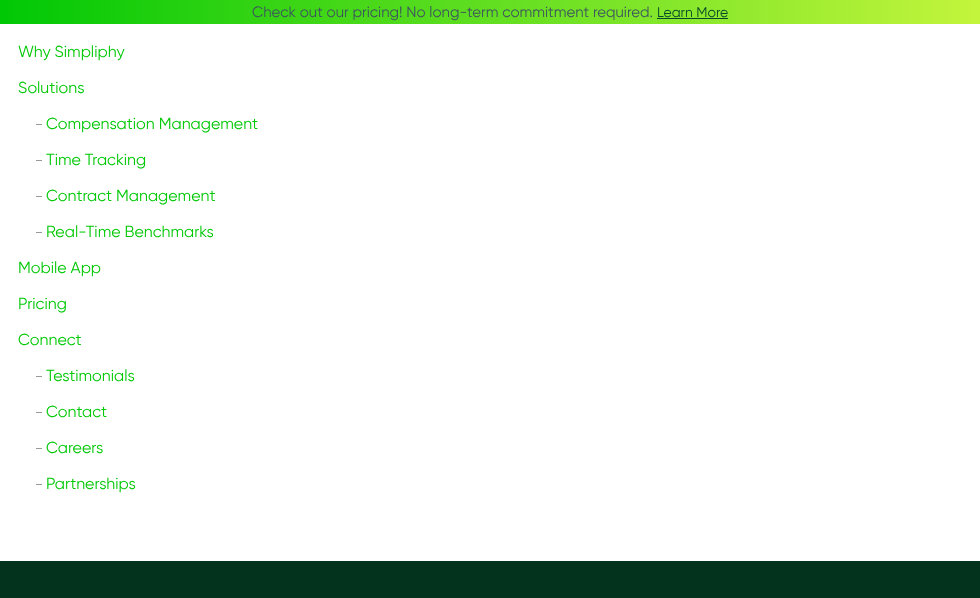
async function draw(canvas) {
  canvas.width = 980;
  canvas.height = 598;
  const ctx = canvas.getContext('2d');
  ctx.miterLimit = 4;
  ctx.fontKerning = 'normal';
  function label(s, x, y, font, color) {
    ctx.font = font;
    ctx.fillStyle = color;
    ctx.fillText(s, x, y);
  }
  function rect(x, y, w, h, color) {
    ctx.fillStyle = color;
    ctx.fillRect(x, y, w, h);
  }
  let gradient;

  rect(0, 0, 980, 598, '#fff');
  gradient = ctx.createLinearGradient(0, 12, 980, 12);
  gradient.addColorStop(0, '#00c805');
  gradient.addColorStop(1, '#c3f53c');
  ctx.fillStyle = gradient;
  ctx.fillRect(0, 0, 980, 24);
  label('Check out our pricing! No long-term commitment required.', 252, 17, '15px Gilroy', '#3e545f');
  label('Learn More', 657, 17, '14px Gilroy', '#064929');
  rect(657, 18, 71, 1, '#064929');
  label('Why Simpliphy', 18, 57, '16px Gilroy', '#00c805');
  label('Solutions', 18, 93, '16px Gilroy', '#00c805');
  rect(36, 124, 6, 1, '#999');
  label('Compensation Management', 46, 129, '16px Gilroy', '#00c805');
  rect(36, 160, 6, 1, '#999');
  label('Time Tracking', 46, 165, '16px Gilroy', '#00c805');
  rect(36, 196, 6, 1, '#999');
  label('Contract Management', 46, 201, '16px Gilroy', '#00c805');
  rect(36, 232, 6, 1, '#999');
  label('Real-Time Benchmarks', 46, 237, '16px Gilroy', '#00c805');
  label('Mobile App', 18, 273, '16px Gilroy', '#00c805');
  label('Pricing', 18, 309, '16px Gilroy', '#00c805');
  label('Connect', 18, 345, '16px Gilroy', '#00c805');
  rect(36, 376, 6, 1, '#999');
  label('Testimonials', 46, 381, '16px Gilroy', '#00c805');
  rect(36, 412, 6, 1, '#999');
  label('Contact', 46, 417, '16px Gilroy', '#00c805');
  rect(36, 448, 6, 1, '#999');
  label('Careers', 46, 453, '16px Gilroy', '#00c805');
  rect(36, 484, 6, 1, '#999');
  label('Partnerships', 46, 489, '16px Gilroy', '#00c805');
  rect(0, 561, 980, 37, '#04331d');
}

draw(document.querySelector('canvas'));
